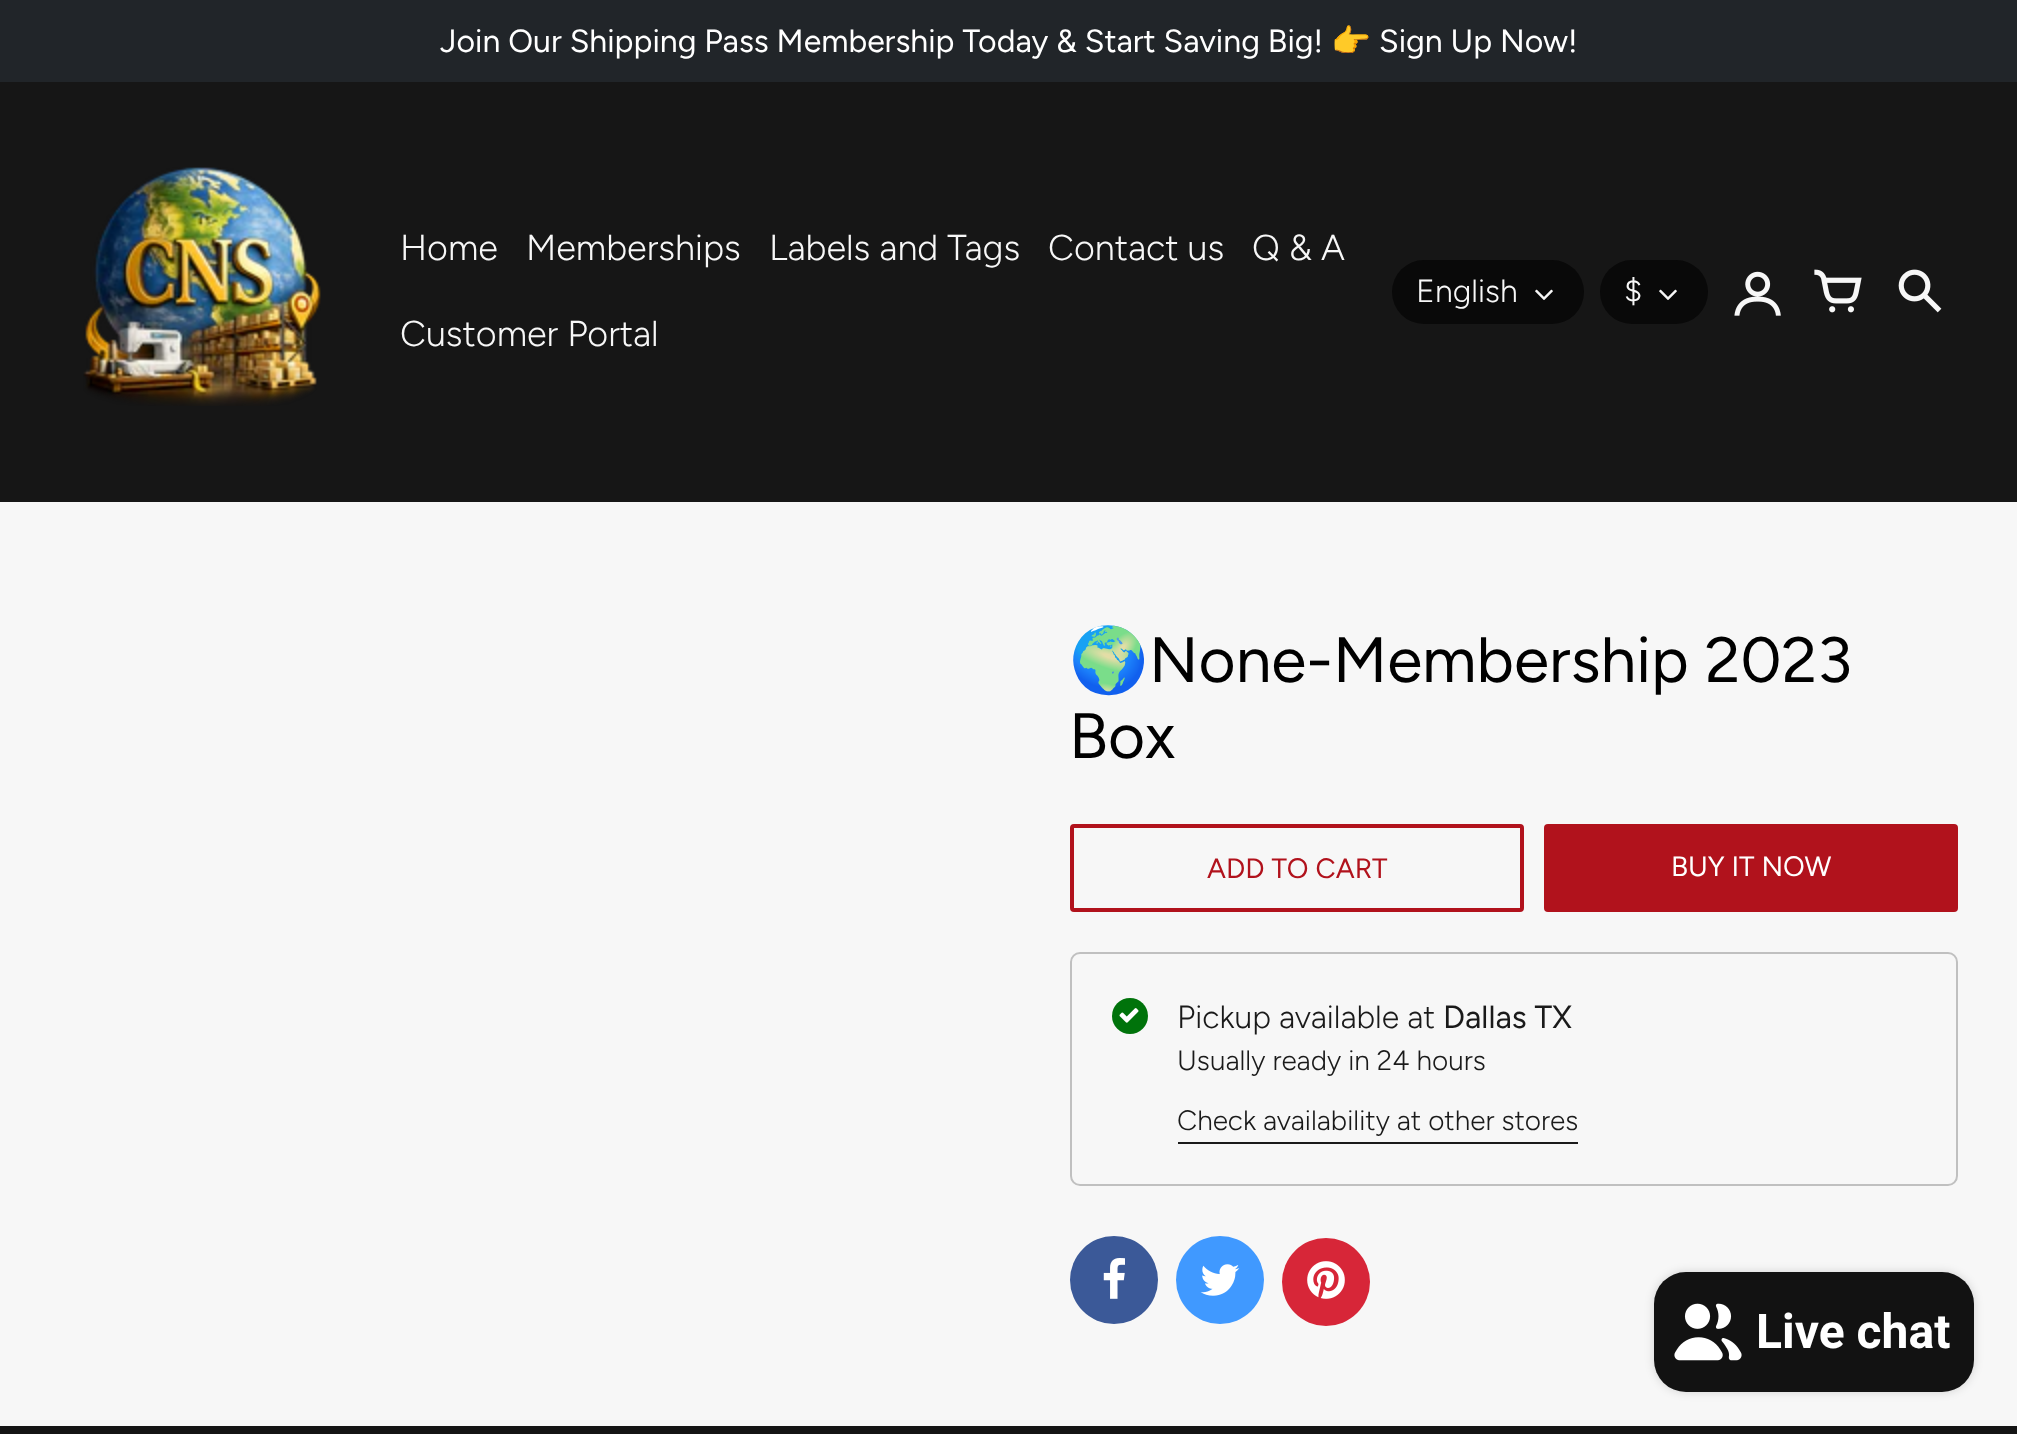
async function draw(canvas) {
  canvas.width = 2017;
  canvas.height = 1434;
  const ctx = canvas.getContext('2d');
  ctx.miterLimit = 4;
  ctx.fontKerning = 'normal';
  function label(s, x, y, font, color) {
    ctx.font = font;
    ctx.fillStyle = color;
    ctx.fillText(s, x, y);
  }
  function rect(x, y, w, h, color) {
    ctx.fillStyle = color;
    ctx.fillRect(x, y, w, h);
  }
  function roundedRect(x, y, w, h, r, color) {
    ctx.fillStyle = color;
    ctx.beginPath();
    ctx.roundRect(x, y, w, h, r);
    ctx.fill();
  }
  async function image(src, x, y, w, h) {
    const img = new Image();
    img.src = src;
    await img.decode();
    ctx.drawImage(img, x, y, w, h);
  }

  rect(0, 0, 2017, 1434, '#212529');
  label('Join Our Shipping Pass Membership Today & Start Saving Big!', 440, 52, '32px Figtree', '#fff');
  label('👉', 1331, 52, '32px Noto Color Emoji', '#fff');
  label('Sign Up Now!', 1379, 52, '32px Figtree', '#fff');
  rect(0, 82, 2017, 420, '#161616');
  await image('assets/img1.png', 83, 167, 238, 239);
  label('Home', 400, 260, '300 36px Figtree', '#f7f7f7');
  label('Memberships', 526, 260, '300 36px Figtree', '#f7f7f7');
  label('Labels and Tags', 769, 260, '300 36px Figtree', '#f7f7f7');
  label('Contact us', 1048, 260, '300 36px Figtree', '#f7f7f7');
  label('Q & A', 1252, 260, '300 36px Figtree', '#f7f7f7');
  label('Customer Portal', 400, 346, '300 36px Figtree', '#f7f7f7');
  roundedRect(1392, 260, 192, 64, 32, '#090909');
  label('English', 1416, 302, '300 32px Figtree', '#f7f7f7');
  await image('assets/img2.png', 1535, 289, 18, 11);
  roundedRect(1600, 260, 108, 64, 32, '#090909');
  label('$', 1624, 302, '300 32px Figtree', '#f7f7f7');
  await image('assets/img2.png', 1659, 289, 18, 11);
  await image('assets/img3.png', 1734, 271, 47, 45);
  await image('assets/img4.png', 1814, 269, 48, 44);
  await image('assets/img5.png', 1898, 269, 44, 44);
  rect(0, 502, 2017, 924, '#f7f7f7');
  label('🌍', 1069, 682, '64px Noto Color Emoji', '#000');
  label('None-Membership 2023', 1149, 682, '64px Figtree', '#000');
  label('Box', 1069, 758, '64px Figtree', '#000');
  ctx.beginPath();
  ctx.roundRect(1072, 826, 450, 84, 2);
  ctx.strokeStyle = '#b1121c';
  ctx.lineWidth = 4;
  ctx.stroke();
  label('ADD TO CART', 1207, 878, '28px Figtree', '#b1121c');
  roundedRect(1544, 824, 414, 88, 4, '#b1121c');
  label('BUY IT NOW', 1671, 876, '28px Figtree', '#fff');
  ctx.beginPath();
  ctx.roundRect(1071, 953, 886, 232, 9);
  ctx.strokeStyle = '#c0c0c0';
  ctx.lineWidth = 2;
  ctx.stroke();
  ctx.fillStyle = '#00730b';
  ctx.beginPath();
  ctx.arc(1130, 1016, 18, 0, 2 * Math.PI);
  ctx.fill();
  await image('assets/img6.png', 1119, 1008, 20, 15);
  label('Pickup available at', 1177, 1028, '300 32px Figtree', '#1a1a1a');
  label('Dallas TX', 1443, 1028, '32px Figtree', '#1a1a1a');
  label('Usually ready in 24 hours', 1177, 1070, '300 28px Figtree', '#1a1a1a');
  rect(1178, 1142, 400, 2, '#1a1a1a');
  label('Check availability at other stores', 1177, 1130, '300 28px Figtree', '#1a1a1a');
  ctx.fillStyle = '#3b5998';
  ctx.beginPath();
  ctx.arc(1114, 1280, 44, 0, 2 * Math.PI);
  ctx.fill();
  await image('assets/img7.png', 1103, 1258, 22, 41);
  ctx.fillStyle = '#4099ff';
  ctx.beginPath();
  ctx.arc(1220, 1280, 44, 0, 2 * Math.PI);
  ctx.fill();
  await image('assets/img8.png', 1200, 1264, 40, 32);
  ctx.fillStyle = '#d72638';
  ctx.beginPath();
  ctx.arc(1326, 1282, 44, 0, 2 * Math.PI);
  ctx.fill();
  await image('assets/img9.png', 1307, 1261, 38, 38);
  rect(0, 1426, 2017, 8, '#141414');
  ctx.fillStyle = '#00000026';
  ctx.filter = 'blur(5px)';
  ctx.beginPath();
  ctx.roundRect(1654, 1272, 320, 120, 32);
  ctx.fill();
  ctx.filter = 'none';
  roundedRect(1654, 1272, 320, 120, 32, '#121212');
  await image('assets/img10.png', 1674, 1303, 68, 58);
  label('Live chat', 1756, 1348, 'bold 48px Roboto', '#fff');
}

draw(document.querySelector('canvas'));
